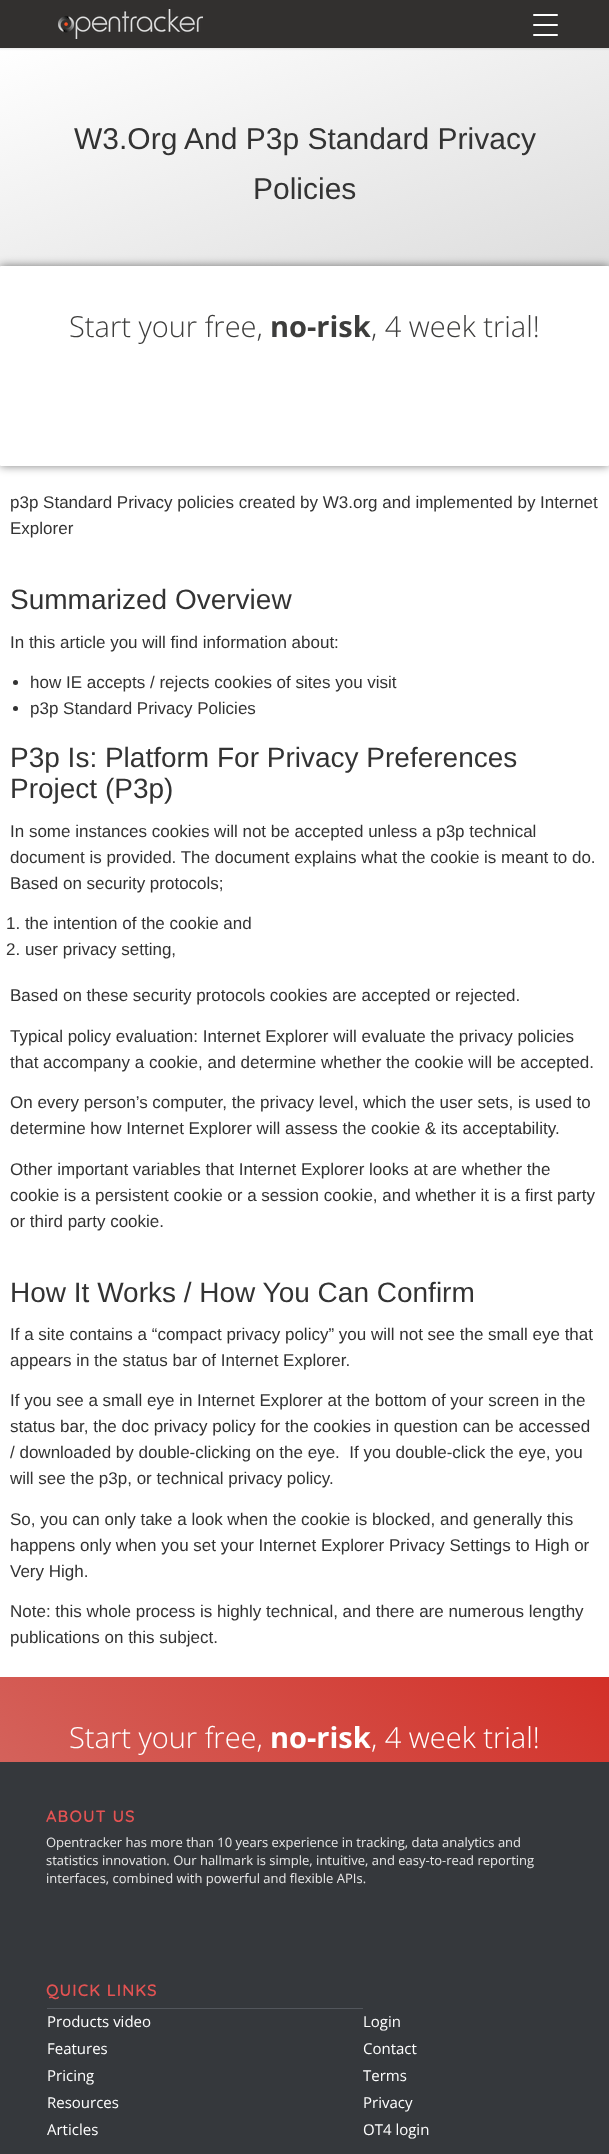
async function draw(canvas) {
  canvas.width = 609;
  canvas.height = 2154;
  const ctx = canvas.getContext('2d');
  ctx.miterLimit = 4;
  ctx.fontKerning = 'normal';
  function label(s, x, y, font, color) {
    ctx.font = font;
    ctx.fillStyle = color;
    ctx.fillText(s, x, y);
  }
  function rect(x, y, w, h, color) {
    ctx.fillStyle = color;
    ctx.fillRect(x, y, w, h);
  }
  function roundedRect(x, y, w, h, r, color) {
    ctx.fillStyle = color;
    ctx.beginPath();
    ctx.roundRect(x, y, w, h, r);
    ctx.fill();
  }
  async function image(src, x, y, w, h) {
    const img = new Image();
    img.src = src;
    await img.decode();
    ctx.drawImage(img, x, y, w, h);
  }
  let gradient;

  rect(0, 0, 609, 2154, '#fff');
  gradient = ctx.createLinearGradient(233, -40, 376, 351);
  gradient.addColorStop(0, '#fff');
  gradient.addColorStop(1, '#ddd');
  ctx.fillStyle = gradient;
  ctx.fillRect(0, 48, 609, 218);
  ctx.fillStyle = '#0000001a';
  ctx.filter = 'blur(1px)';
  ctx.beginPath();
  ctx.rect(-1, -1, 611, 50);
  ctx.fill();
  ctx.filter = 'none';
  rect(0, 0, 609, 48, '#32302f');
  await image('assets/img1.png', 58, 9, 145, 30);
  roundedRect(533, 24, 25, 2, 1, '#fff');
  roundedRect(533, 14, 25, 2, 1, '#fff');
  roundedRect(533, 34, 25, 2, 1, '#fff');
  label('W3.Org And P3p Standard Privacy', 74, 149, '30px Liberation Sans', '#333');
  label('Policies', 253, 199, '30px Liberation Sans', '#333');
  ctx.fillStyle = '#00000080';
  ctx.filter = 'blur(5px)';
  ctx.beginPath();
  ctx.roundRect(0, 266, 609, 200, 1);
  ctx.fill();
  ctx.filter = 'none';
  roundedRect(0, 266, 609, 200, 1, '#fff');
  label('Start your free,', 69, 337, '300 29px Open Sans', '#3d3d3c');
  label('no-risk', 270, 337, 'bold 29px Open Sans', '#3d3d3c');
  label(', 4 week trial!', 371, 337, '300 29px Open Sans', '#3d3d3c');
  label('p3p Standard Privacy policies created by W3.org and implemented by Internet', 10, 508, '17px Liberation Sans', '#333');
  label('Explorer', 10, 534, '17px Liberation Sans', '#333');
  label('Summarized Overview', 10, 609, '28px Liberation Sans', '#333');
  label('In this article you will find information about:', 10, 648, '17px Liberation Sans', '#333');
  ctx.beginPath();
  ctx.arc(15.5, 682.5, 2.5, 0, 2 * Math.PI);
  ctx.fill();
  label('how IE accepts / rejects cookies of sites you visit', 30, 688, '17px Liberation Sans', '#333');
  ctx.beginPath();
  ctx.arc(15.5, 708.5, 2.5, 0, 2 * Math.PI);
  ctx.fill();
  label('p3p Standard Privacy Policies', 30, 714, '17px Liberation Sans', '#333');
  label('P3p Is: Platform For Privacy Preferences', 10, 767, '28px Liberation Sans', '#333');
  label('Project (P3p)', 10, 798, '28px Liberation Sans', '#333');
  label('In some instances cookies will not be accepted unless a p3p technical', 10, 837, '17px Liberation Sans', '#333');
  label('document is provided. The document explains what the cookie is meant to do.', 10, 863, '17px Liberation Sans', '#333');
  label('Based on security protocols;', 10, 889, '17px Liberation Sans', '#333');
  label('1. the intention of the cookie and', 6, 929, '17px Liberation Sans', '#333');
  label('2. user privacy setting,', 6, 955, '17px Liberation Sans', '#333');
  label('Based on these security protocols cookies are accepted or rejected.', 10, 1001, '17px Liberation Sans', '#333');
  label('Typical policy evaluation: Internet Explorer will evaluate the privacy policies', 10, 1042, '17px Liberation Sans', '#333');
  label('that accompany a cookie, and determine whether the cookie will be accepted.', 10, 1068, '17px Liberation Sans', '#333');
  label('On every person’s computer, the privacy level, which the user sets, is used to', 10, 1108, '17px Liberation Sans', '#333');
  label('determine how Internet Explorer will assess the cookie & its acceptability.', 10, 1134, '17px Liberation Sans', '#333');
  label('Other important variables that Internet Explorer looks at are whether the', 10, 1175, '17px Liberation Sans', '#333');
  label('cookie is a persistent cookie or a session cookie, and whether it is a first party', 10, 1201, '17px Liberation Sans', '#333');
  label('or third party cookie.', 10, 1227, '17px Liberation Sans', '#333');
  label('How It Works / How You Can Confirm', 10, 1302, '28px Liberation Sans', '#333');
  label('If a site contains a “compact privacy policy” you will not see the small eye that', 10, 1340, '17px Liberation Sans', '#333');
  label('appears in the status bar of Internet Explorer.', 10, 1366, '17px Liberation Sans', '#333');
  label('If you see a small eye in Internet Explorer at the bottom of your screen in the', 10, 1406, '17px Liberation Sans', '#333');
  label('status bar, the doc privacy policy for the cookies in question can be accessed', 10, 1432, '17px Liberation Sans', '#333');
  label('/ downloaded by double-clicking on the eye.  If you double-click the eye, you', 10, 1458, '17px Liberation Sans', '#333');
  label('will see the p3p, or technical privacy policy.', 10, 1484, '17px Liberation Sans', '#333');
  label('So, you can only take a look when the cookie is blocked, and generally this', 10, 1525, '17px Liberation Sans', '#333');
  label('happens only when you set your Internet Explorer Privacy Settings to High or', 10, 1551, '17px Liberation Sans', '#333');
  label('Very High.', 10, 1577, '17px Liberation Sans', '#333');
  label('Note: this whole process is highly technical, and there are numerous lengthy', 10, 1617, '17px Liberation Sans', '#333');
  label('publications on this subject.', 10, 1643, '17px Liberation Sans', '#333');
  gradient = ctx.createLinearGradient(158, 1894, 451, 1545);
  gradient.addColorStop(0, '#d4625b');
  gradient.addColorStop(1, '#d33028');
  ctx.fillStyle = gradient;
  ctx.fillRect(0, 1677, 609, 85);
  label('Start your free,', 69, 1748, '300 29px Open Sans', '#fff');
  label('no-risk', 270, 1748, 'bold 29px Open Sans', '#fff');
  label(', 4 week trial!', 371, 1748, '300 29px Open Sans', '#fff');
  rect(0, 1762, 609, 392, '#35383c');
  ctx.letterSpacing = '1px';
  label('ABOUT US', 46, 1822, '600 16.5px Quicksand', '#e35353');
  ctx.letterSpacing = '0px';
  label('Opentracker has more than 10 years experience in tracking, data analytics and', 46, 1847, '13px Open Sans', '#e8e8e8');
  label('statistics innovation. Our hallmark is simple, intuitive, and easy-to-read reporting', 46, 1865, '13px Open Sans', '#e8e8e8');
  label('interfaces, combined with powerful and flexible APIs.', 46, 1883, '13px Open Sans', '#e8e8e8');
  ctx.letterSpacing = '1px';
  label('QUICK LINKS', 46, 1996, '600 16.5px Quicksand', '#e35353');
  rect(47, 2008, 316, 1, '#52565c');
  ctx.letterSpacing = '0px';
  label('Products video', 47, 2027, '15px Open Sans', '#fff');
  label('Features', 47, 2054, '15px Open Sans', '#fff');
  label('Pricing', 47, 2081, '15px Open Sans', '#fff');
  label('Resources', 47, 2108, '15px Open Sans', '#fff');
  label('Articles', 47, 2135, '15px Open Sans', '#fff');
  label('Login', 363, 2027, '15px Open Sans', '#fff');
  label('Contact', 363, 2054, '15px Open Sans', '#fff');
  label('Terms', 363, 2081, '15px Open Sans', '#fff');
  label('Privacy', 363, 2108, '15px Open Sans', '#fff');
  label('OT4 login', 363, 2135, '15px Open Sans', '#fff');
}

draw(document.querySelector('canvas'));
